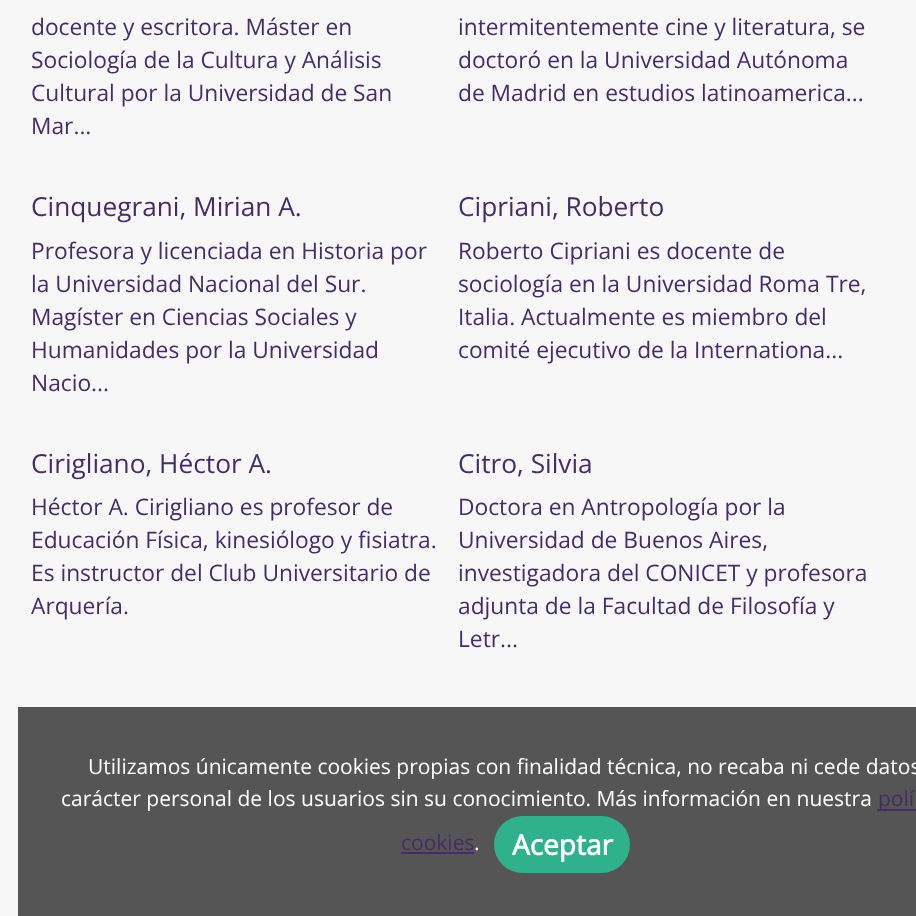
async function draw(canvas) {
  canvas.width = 916;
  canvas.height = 916;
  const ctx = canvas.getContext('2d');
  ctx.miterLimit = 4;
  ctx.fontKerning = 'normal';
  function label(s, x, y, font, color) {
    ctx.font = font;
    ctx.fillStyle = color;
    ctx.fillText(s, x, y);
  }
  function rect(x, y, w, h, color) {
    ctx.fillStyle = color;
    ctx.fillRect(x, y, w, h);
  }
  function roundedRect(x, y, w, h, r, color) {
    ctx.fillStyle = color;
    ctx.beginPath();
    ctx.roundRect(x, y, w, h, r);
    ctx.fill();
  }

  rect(0, 0, 916, 916, '#f7f7f7');
  label('docente y escritora. Máster en', 31, 35, '22.75px Open Sans', '#452c68');
  label('Sociología de la Cultura y Análisis', 31, 68, '22.75px Open Sans', '#452c68');
  label('Cultural por la Universidad de San', 31, 101, '22.75px Open Sans', '#452c68');
  label('Mar...', 31, 134, '22.75px Open Sans', '#452c68');
  label('intermitentemente cine y literatura, se', 458, 35, '22.75px Open Sans', '#452c68');
  label('doctoró en la Universidad Autónoma', 458, 68, '22.75px Open Sans', '#452c68');
  label('de Madrid en estudios latinoamerica...', 458, 101, '22.75px Open Sans', '#452c68');
  label('Cinquegrani, Mirian A.', 31, 216, '26.25px Open Sans', '#452c68');
  label('Profesora y licenciada en Historia por', 31, 259, '22.75px Open Sans', '#452c68');
  label('la Universidad Nacional del Sur.', 31, 292, '22.75px Open Sans', '#452c68');
  label('Magíster en Ciencias Sociales y', 31, 325, '22.75px Open Sans', '#452c68');
  label('Humanidades por la Universidad', 31, 358, '22.75px Open Sans', '#452c68');
  label('Nacio...', 31, 391, '22.75px Open Sans', '#452c68');
  label('Cipriani, Roberto', 458, 216, '26.25px Open Sans', '#452c68');
  label('Roberto Cipriani es docente de', 458, 259, '22.75px Open Sans', '#452c68');
  label('sociología en la Universidad Roma Tre,', 458, 292, '22.75px Open Sans', '#452c68');
  label('Italia. Actualmente es miembro del', 458, 325, '22.75px Open Sans', '#452c68');
  label('comité ejecutivo de la Internationa...', 458, 358, '22.75px Open Sans', '#452c68');
  label('Cirigliano, Héctor A.', 31, 473, '26.25px Open Sans', '#452c68');
  label('Héctor A. Cirigliano es profesor de', 31, 515, '22.75px Open Sans', '#452c68');
  label('Educación Física, kinesiólogo y fisiatra.', 31, 548, '22.75px Open Sans', '#452c68');
  label('Es instructor del Club Universitario de', 31, 581, '22.75px Open Sans', '#452c68');
  label('Arquería.', 31, 614, '22.75px Open Sans', '#452c68');
  label('Citro, Silvia', 458, 473, '26.25px Open Sans', '#452c68');
  label('Doctora en Antropología por la', 458, 515, '22.75px Open Sans', '#452c68');
  label('Universidad de Buenos Aires,', 458, 548, '22.75px Open Sans', '#452c68');
  label('investigadora del CONICET y profesora', 458, 581, '22.75px Open Sans', '#452c68');
  label('adjunta de la Facultad de Filosofía y', 458, 614, '22.75px Open Sans', '#452c68');
  label('Letr...', 458, 647, '22.75px Open Sans', '#452c68');
  rect(18, 707, 898, 209, '#555');
  label('Utilizamos únicamente cookies propias con finalidad técnica, no recaba ni cede datos', 88, 774, '21px Open Sans', '#fff');
  label('carácter personal de los usuarios sin su conocimiento. Más información en nuestra', 61, 806, '21px Open Sans', '#fff');
  rect(877, 809, 39, 2, '#452c68');
  label('polí', 878, 806, '21px Open Sans', '#452c68');
  label('cookies', 401, 850, '21px Open Sans', '#452c68');
  rect(401, 852, 73, 2, '#452c68');
  label('.', 474, 850, '21px Open Sans', '#fff');
  roundedRect(494, 816, 136, 57, 28.5, '#2fb18d');
  label('Aceptar', 512, 855, 'bold 28px Open Sans', '#fff');
}

draw(document.querySelector('canvas'));
